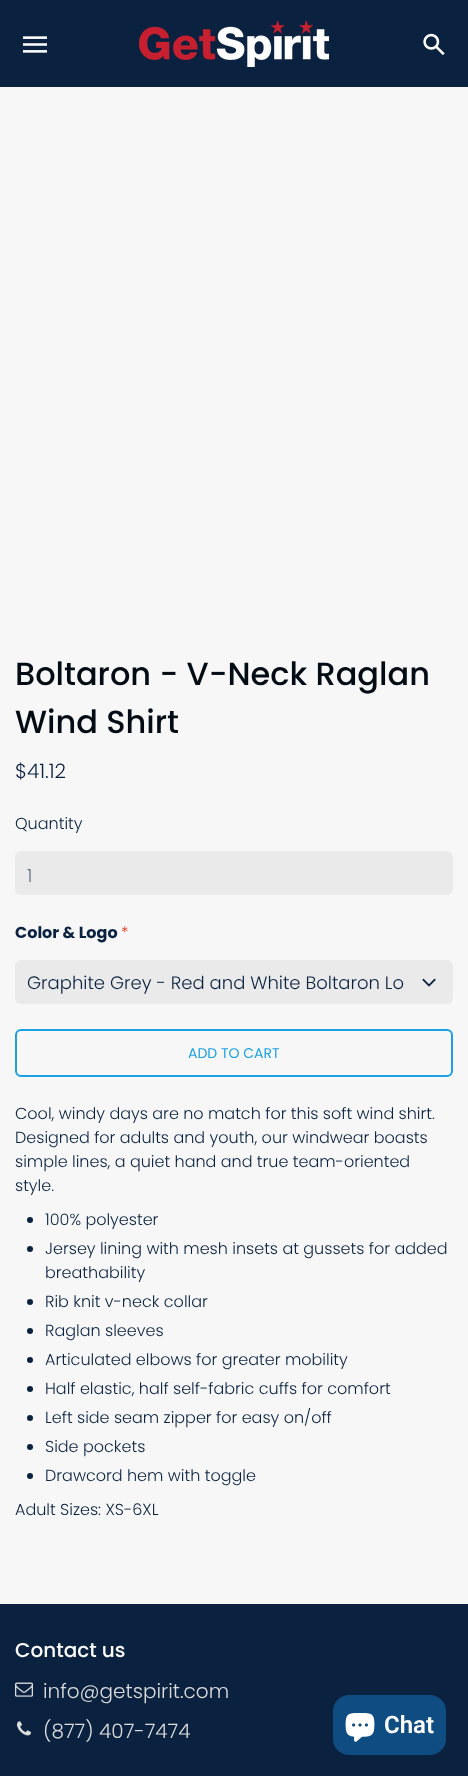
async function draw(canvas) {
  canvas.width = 468;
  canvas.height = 1776;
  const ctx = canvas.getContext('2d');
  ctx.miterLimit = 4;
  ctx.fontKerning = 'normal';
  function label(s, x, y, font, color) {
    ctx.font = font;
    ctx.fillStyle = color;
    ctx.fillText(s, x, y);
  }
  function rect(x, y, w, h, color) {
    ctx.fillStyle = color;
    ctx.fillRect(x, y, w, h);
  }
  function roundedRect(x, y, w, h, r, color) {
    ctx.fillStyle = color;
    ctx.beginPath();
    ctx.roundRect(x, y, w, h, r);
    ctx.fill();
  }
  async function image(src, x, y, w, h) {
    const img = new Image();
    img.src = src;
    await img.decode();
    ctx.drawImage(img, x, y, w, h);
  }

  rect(0, 0, 468, 1776, '#f7f7f7');
  rect(0, 0, 468, 87, '#0a2240');
  await image('assets/img1.png', 23, 36, 24, 17);
  await image('assets/img2.png', 139, 20, 190, 47);
  await image('assets/img3.png', 423, 33, 22, 23);
  label('Boltaron - V-Neck Raglan', 15, 685, '500 32px Poppins', '#030b14');
  label('Wind Shirt', 15, 733, '500 32px Poppins', '#030b14');
  label('$41.12', 15, 778, '300 20px Poppins', '#0a2240');
  label('Quantity', 15, 829, '300 16px Poppins', '#0a2240');
  roundedRect(15, 851, 438, 44, 6, '#eaeaea');
  label('1', 27, 882, '300 18px Poppins', '#647284');
  label('Color & Logo', 15, 938, 'bold 16px Poppins', '#0a2240');
  label('*', 121, 938, '300 16px Poppins', '#de3618');
  roundedRect(15, 960, 438, 44, 6, '#eaeaea');
  label('Graphite Grey - Red and White Boltaron Lo', 27, 989, '300 18px Poppins', '#0a2240');
  await image('assets/img4.png', 422, 978, 14, 9);
  ctx.beginPath();
  ctx.roundRect(16, 1030, 436, 46, 5);
  ctx.strokeStyle = '#1ba1e2';
  ctx.lineWidth = 2;
  ctx.stroke();
  label('ADD TO CART', 188, 1058, '14px Poppins', '#1ba1e2');
  label('Cool, windy days are no match for this soft wind shirt.', 15, 1119, '300 16px Poppins', '#0a2240');
  label('Designed for adults and youth, our windwear boasts', 15, 1143, '300 16px Poppins', '#0a2240');
  label('simple lines, a quiet hand and true team-oriented', 15, 1167, '300 16px Poppins', '#0a2240');
  label('style.', 15, 1191, '300 16px Poppins', '#0a2240');
  ctx.beginPath();
  ctx.arc(30, 1220, 3, 0, 2 * Math.PI);
  ctx.fill();
  label('100% polyester', 45, 1225, '300 16px Poppins', '#0a2240');
  ctx.beginPath();
  ctx.arc(30, 1249, 3, 0, 2 * Math.PI);
  ctx.fill();
  label('Jersey lining with mesh insets at gussets for added', 45, 1254, '300 16px Poppins', '#0a2240');
  label('breathability', 45, 1278, '300 16px Poppins', '#0a2240');
  ctx.beginPath();
  ctx.arc(30, 1302, 3, 0, 2 * Math.PI);
  ctx.fill();
  label('Rib knit v-neck collar', 45, 1307, '300 16px Poppins', '#0a2240');
  ctx.beginPath();
  ctx.arc(30, 1331, 3, 0, 2 * Math.PI);
  ctx.fill();
  label('Raglan sleeves', 45, 1336, '300 16px Poppins', '#0a2240');
  ctx.beginPath();
  ctx.arc(30, 1360, 3, 0, 2 * Math.PI);
  ctx.fill();
  label('Articulated elbows for greater mobility', 45, 1365, '300 16px Poppins', '#0a2240');
  ctx.beginPath();
  ctx.arc(30, 1389, 3, 0, 2 * Math.PI);
  ctx.fill();
  label('Half elastic, half self-fabric cuffs for comfort', 45, 1394, '300 16px Poppins', '#0a2240');
  ctx.beginPath();
  ctx.arc(30, 1418, 3, 0, 2 * Math.PI);
  ctx.fill();
  label('Left side seam zipper for easy on/off', 45, 1423, '300 16px Poppins', '#0a2240');
  ctx.beginPath();
  ctx.arc(30, 1447, 3, 0, 2 * Math.PI);
  ctx.fill();
  label('Side pockets', 45, 1452, '300 16px Poppins', '#0a2240');
  ctx.beginPath();
  ctx.arc(30, 1476, 3, 0, 2 * Math.PI);
  ctx.fill();
  label('Drawcord hem with toggle', 45, 1481, '300 16px Poppins', '#0a2240');
  label('Adult Sizes: XS-6XL', 15, 1515, '300 16px Poppins', '#0a2240');
  rect(0, 1604, 468, 172, '#0a2240');
  label('Contact us', 15, 1657, '500 20px Poppins', '#fcfcfc');
  await image('assets/img5.png', 15, 1682, 18, 15);
  label('info@getspirit.com', 43, 1698, '300 20px Poppins', '#dcdcdc');
  await image('assets/img6.png', 16, 1721, 16, 15);
  label('(877) 407-7474', 43, 1738, '300 20px Poppins', '#dcdcdc');
  roundedRect(333, 1695, 113, 60, 16, '#0f4c81');
  await image('assets/img7.png', 345, 1713, 30, 29);
  label('Chat', 384, 1733, '600 24px Roboto', '#fcfcfc');
}

draw(document.querySelector('canvas'));
